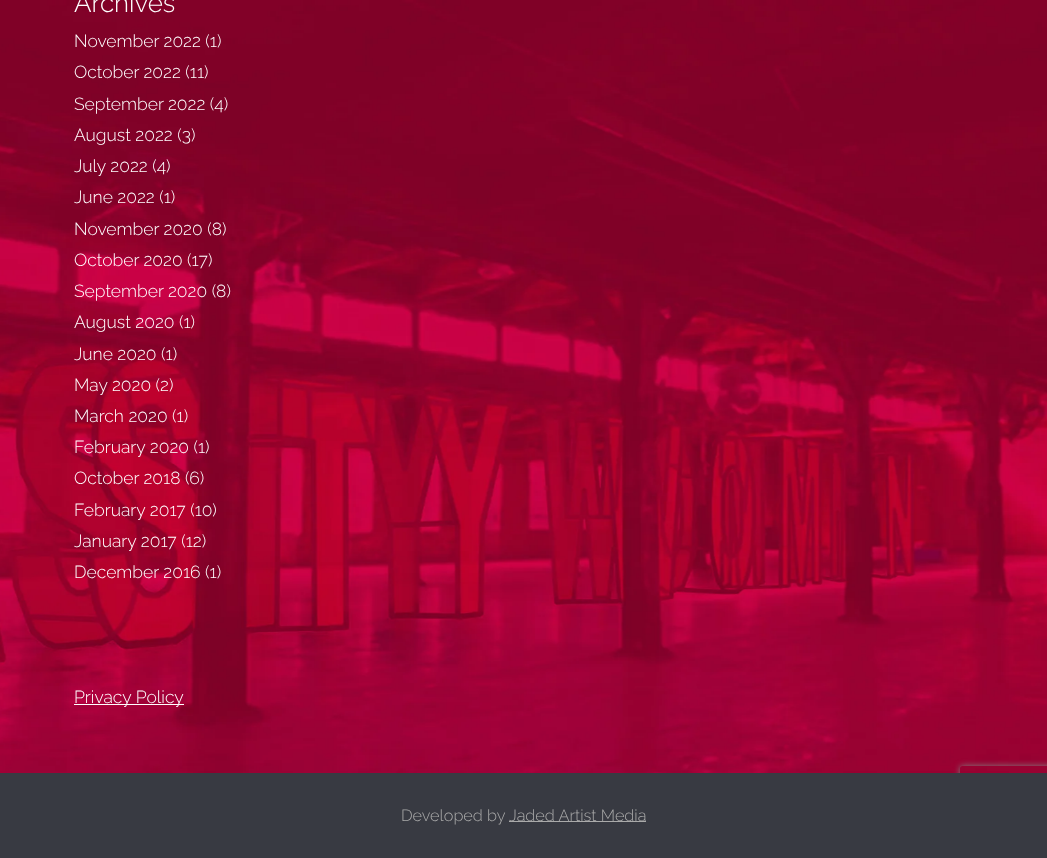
async function draw(canvas) {
  canvas.width = 1047;
  canvas.height = 858;
  const ctx = canvas.getContext('2d');
  ctx.miterLimit = 4;
  ctx.fontKerning = 'normal';
  function label(s, x, y, font, color) {
    ctx.font = font;
    ctx.fillStyle = color;
    ctx.fillText(s, x, y);
  }
  function rect(x, y, w, h, color) {
    ctx.fillStyle = color;
    ctx.fillRect(x, y, w, h);
  }
  async function image(src, x, y, w, h) {
    const img = new Image();
    img.src = src;
    await img.decode();
    ctx.drawImage(img, x, y, w, h);
  }
  let path;

  rect(0, 0, 1047, 858, '#fff');
  await image('assets/img1.png', 0, 0, 1047, 773);
  label('Archives', 74, 12, '300 26px Raleway', '#fff');
  label('November 2022 (1)', 74, 47, '300 17.5px Raleway', '#fff');
  label('October 2022 (11)', 74, 78, '300 17.5px Raleway', '#fff');
  label('September 2022 (4)', 74, 110, '300 17.5px Raleway', '#fff');
  label('August 2022 (3)', 74, 141, '300 17.5px Raleway', '#fff');
  label('July 2022 (4)', 74, 172, '300 17.5px Raleway', '#fff');
  label('June 2022 (1)', 74, 203, '300 17.5px Raleway', '#fff');
  label('November 2020 (8)', 74, 235, '300 17.5px Raleway', '#fff');
  label('October 2020 (17)', 74, 266, '300 17.5px Raleway', '#fff');
  label('September 2020 (8)', 74, 297, '300 17.5px Raleway', '#fff');
  label('August 2020 (1)', 74, 328, '300 17.5px Raleway', '#fff');
  label('June 2020 (1)', 74, 360, '300 17.5px Raleway', '#fff');
  label('May 2020 (2)', 74, 391, '300 17.5px Raleway', '#fff');
  label('March 2020 (1)', 74, 422, '300 17.5px Raleway', '#fff');
  label('February 2020 (1)', 74, 453, '300 17.5px Raleway', '#fff');
  label('October 2018 (6)', 74, 484, '300 17.5px Raleway', '#fff');
  label('February 2017 (10)', 74, 516, '300 17.5px Raleway', '#fff');
  label('January 2017 (12)', 74, 547, '300 17.5px Raleway', '#fff');
  label('December 2016 (1)', 74, 578, '300 17.5px Raleway', '#fff');
  rect(74, 704, 110, 1, '#fff');
  label('Privacy Policy', 74, 703, '300 17.5px Raleway', '#fff');
  ctx.save();
  path = new Path2D('M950 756H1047V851H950ZM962.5 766H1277.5C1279 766 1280 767 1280 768.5V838.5C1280 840 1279 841 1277.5 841H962.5C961 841 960 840 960 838.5V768.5C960 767 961 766 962.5 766Z');
  ctx.clip(path, 'evenodd');
  ctx.fillStyle = '#808080';
  ctx.filter = 'blur(3px)';
  ctx.beginPath();
  ctx.roundRect(960, 766, 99, 75, 2.5);
  ctx.fill();
  ctx.filter = 'none';
  ctx.restore();
  rect(0, 773, 1047, 85, '#383a42');
  label('Developed by', 401, 821, '300 16.25px Raleway', '#aaa');
  rect(509, 821, 137, 1, '#aaa');
  label('Jaded Artist Media', 509, 821, '300 16.25px Raleway', '#aaa');
}

draw(document.querySelector('canvas'));
